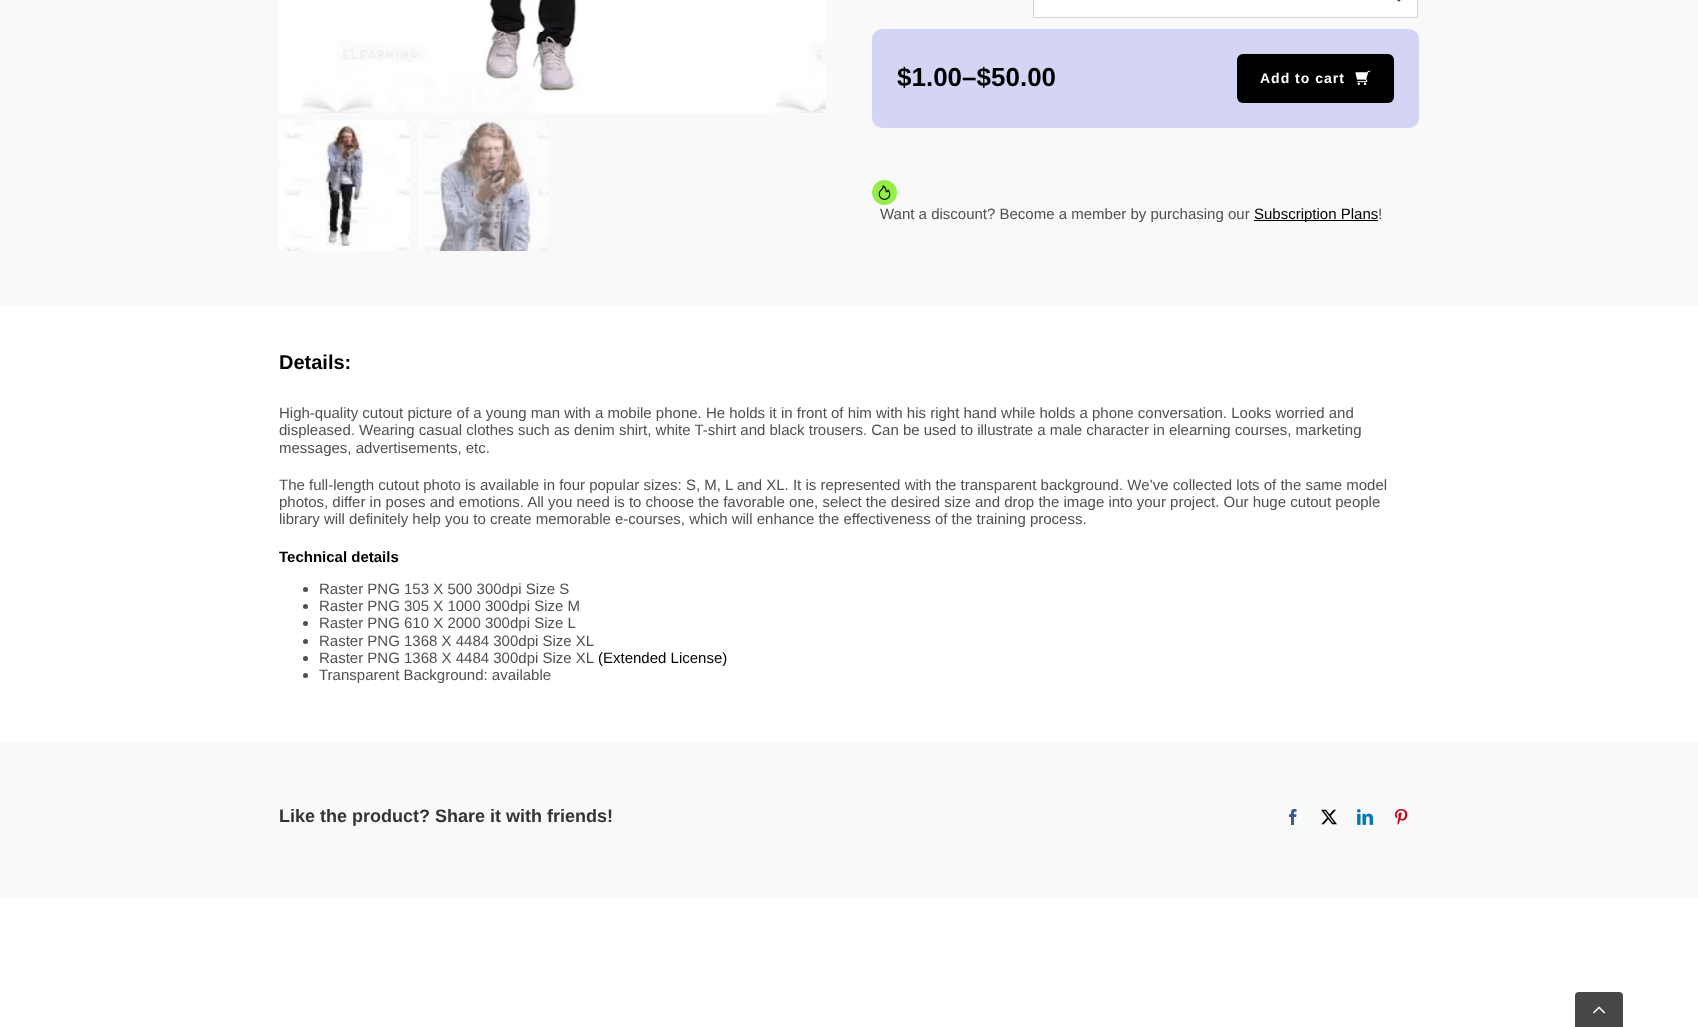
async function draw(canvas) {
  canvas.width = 1698;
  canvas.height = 1027;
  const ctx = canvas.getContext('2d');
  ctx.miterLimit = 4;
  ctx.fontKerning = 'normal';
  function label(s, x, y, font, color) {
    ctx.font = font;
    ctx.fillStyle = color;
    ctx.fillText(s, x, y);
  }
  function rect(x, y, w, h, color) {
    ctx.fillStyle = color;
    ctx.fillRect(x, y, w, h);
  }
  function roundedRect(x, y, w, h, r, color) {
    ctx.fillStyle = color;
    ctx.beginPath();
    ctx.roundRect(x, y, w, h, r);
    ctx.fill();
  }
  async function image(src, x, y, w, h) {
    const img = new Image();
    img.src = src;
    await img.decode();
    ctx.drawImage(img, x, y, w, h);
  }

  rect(0, 0, 1698, 1027, '#fff');
  rect(0, 0, 1698, 306, '#f9f9f9');
  await image('assets/img1.png', 279, 0, 547, 113);
  await image('assets/img2.png', 279, 120, 131, 131);
  await image('assets/img3.png', 418, 120, 131, 131);
  ctx.fillStyle = '#fff';
  ctx.beginPath();
  ctx.rect(1033.5, -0.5, 384, 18);
  ctx.fill();
  ctx.strokeStyle = '#d2d2d2';
  ctx.stroke();
  await image('assets/img4.png', 1397, 0, 4, 2);
  roundedRect(872, 29, 547, 99, 10, '#d4d4f5');
  label('$1.00–$50.00', 897, 86, 'bold 26px Liberation Sans', '#000');
  roundedRect(1237, 54, 157, 49, 6, '#000');
  ctx.letterSpacing = '1px';
  label('Add to cart', 1260, 83, 'bold 14px Liberation Sans', '#fff');
  await image('assets/img5.png', 1355, 70, 16, 15);
  await image('assets/img6.png', 872, 180, 25, 25);
  ctx.letterSpacing = '0px';
  label('Want a discount? Become a member by purchasing our', 880, 219, '15px Liberation Sans', '#505050');
  rect(1254, 220, 124, 1, '#000');
  label('Subscription Plans', 1254, 219, '15px Liberation Sans', '#000');
  label('!', 1378, 219, '15px Liberation Sans', '#505050');
  label('Details:', 279, 369, 'bold 20px Liberation Sans', '#000');
  label('High-quality cutout picture of a young man with a mobile phone. He holds it in front of him with his right hand while holds a phone conversation. Looks worried and', 279, 418, '15px Liberation Sans', '#505050');
  label('displeased. Wearing casual clothes such as denim shirt, white T-shirt and black trousers. Can be used to illustrate a male character in elearning courses, marketing', 279, 435, '15px Liberation Sans', '#505050');
  label('messages, advertisements, etc.', 279, 453, '15px Liberation Sans', '#505050');
  label('The full-length cutout photo is available in four popular sizes: S, M, L and XL. It is represented with the transparent background. We’ve collected lots of the same model', 279, 490, '15px Liberation Sans', '#505050');
  label('photos, differ in poses and emotions. All you need is to choose the favorable one, select the desired size and drop the image into your project. Our huge cutout people', 279, 507, '15px Liberation Sans', '#505050');
  label('library will definitely help you to create memorable e-courses, which will enhance the effectiveness of the training process.', 279, 524, '15px Liberation Sans', '#505050');
  label('Technical details', 279, 562, 'bold 15px Liberation Sans', '#000');
  ctx.fillStyle = '#505050';
  ctx.beginPath();
  ctx.arc(305.5, 589.5, 2.5, 0, 2 * Math.PI);
  ctx.fill();
  label('Raster PNG 153 X 500 300dpi Size S', 319, 594, '15px Liberation Sans', '#505050');
  ctx.beginPath();
  ctx.arc(305.5, 606.5, 2.5, 0, 2 * Math.PI);
  ctx.fill();
  label('Raster PNG 305 X 1000 300dpi Size M', 319, 611, '15px Liberation Sans', '#505050');
  ctx.beginPath();
  ctx.arc(305.5, 623.5, 2.5, 0, 2 * Math.PI);
  ctx.fill();
  label('Raster PNG 610 X 2000 300dpi Size L', 319, 628, '15px Liberation Sans', '#505050');
  ctx.beginPath();
  ctx.arc(305.5, 641.5, 2.5, 0, 2 * Math.PI);
  ctx.fill();
  label('Raster PNG 1368 X 4484 300dpi Size XL', 319, 646, '15px Liberation Sans', '#505050');
  ctx.beginPath();
  ctx.arc(305.5, 658.5, 2.5, 0, 2 * Math.PI);
  ctx.fill();
  label('Raster PNG 1368 X 4484 300dpi Size XL', 319, 663, '15px Liberation Sans', '#505050');
  label('(Extended License)', 598, 663, '15px Liberation Sans', '#000');
  ctx.fillStyle = '#505050';
  ctx.beginPath();
  ctx.arc(305.5, 675.5, 2.5, 0, 2 * Math.PI);
  ctx.fill();
  label('Transparent Background: available', 319, 680, '15px Liberation Sans', '#505050');
  rect(0, 743, 1698, 155, '#f9f9f9');
  label('Like the product? Share it with friends!', 279, 822, 'bold 18px Liberation Sans', '#333');
  await image('assets/img7.png', 1289, 809, 8, 16);
  await image('assets/img8.png', 1321, 809, 16, 16);
  await image('assets/img9.png', 1357, 809, 16, 16);
  await image('assets/img10.png', 1394, 809, 14, 16);
  ctx.fillStyle = '#474747';
  ctx.beginPath();
  ctx.roundRect(1575, 992, 48, 35, [4, 4, 0, 0]);
  ctx.fill();
  await image('assets/img11.png', 1593, 1006, 13, 8);
}

draw(document.querySelector('canvas'));
